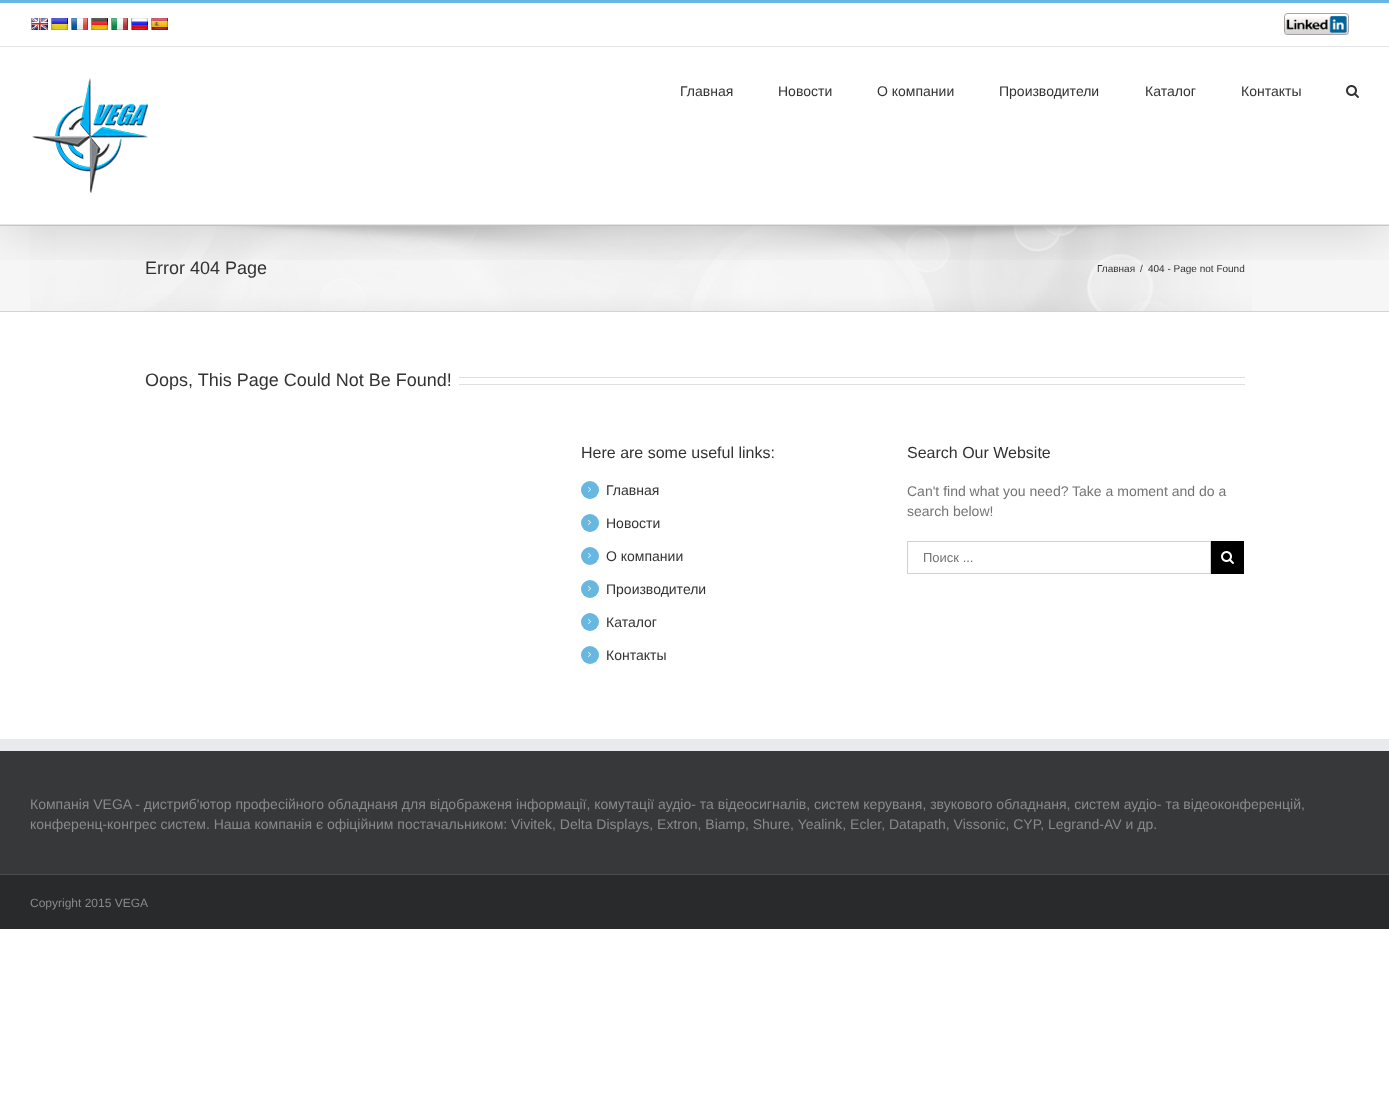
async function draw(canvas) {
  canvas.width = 1389;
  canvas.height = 1097;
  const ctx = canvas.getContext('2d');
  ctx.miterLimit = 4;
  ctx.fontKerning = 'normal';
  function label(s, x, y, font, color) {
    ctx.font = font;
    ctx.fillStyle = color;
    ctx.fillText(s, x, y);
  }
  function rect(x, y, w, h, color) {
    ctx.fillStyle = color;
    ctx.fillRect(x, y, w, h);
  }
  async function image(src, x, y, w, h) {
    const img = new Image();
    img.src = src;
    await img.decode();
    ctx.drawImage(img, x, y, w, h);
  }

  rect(0, 0, 1389, 1097, '#fff');
  rect(0, 0, 1389, 3, '#67b7e1');
  rect(0, 46, 1389, 1, '#e5e5e5');
  await image('assets/img1.png', 31, 18, 17, 12);
  await image('assets/img2.png', 51, 18, 17, 12);
  await image('assets/img3.png', 71, 18, 17, 12);
  await image('assets/img4.png', 91, 18, 17, 12);
  await image('assets/img5.png', 111, 18, 17, 12);
  await image('assets/img6.png', 131, 18, 17, 12);
  await image('assets/img7.png', 151, 18, 17, 12);
  await image('assets/img8.png', 1284, 13, 65, 22);
  rect(0, 224, 1389, 1, '#e5e5e5');
  await image('assets/img9.png', 32, 78, 117, 115);
  await image('assets/img10.png', 1346, 85, 13, 13);
  rect(0, 226, 1389, 85, '#f6f6f6');
  await image('assets/img11.png', 30, 226, 1222, 85);
  rect(0, 225, 1389, 1, '#d2d3d4');
  ctx.save();
  ctx.beginPath();
  ctx.rect(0, 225, 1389, 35);
  ctx.clip();
  ctx.fillStyle = '#00000024';
  ctx.filter = 'blur(25px)';
  ctx.beginPath();
  ctx.rect(2, 12, 1385, 221);
  ctx.fill();
  ctx.filter = 'none';
  ctx.restore();
  label('Главная', 680, 96, '14px Liberation Sans', '#333');
  label('Новости', 778, 96, '14px Liberation Sans', '#333');
  label('О компании', 877, 96, '14px Liberation Sans', '#333');
  label('Производители', 999, 96, '14px Liberation Sans', '#333');
  label('Каталог', 1145, 96, '14px Liberation Sans', '#333');
  label('Контакты', 1241, 96, '14px Liberation Sans', '#333');
  rect(0, 311, 1389, 1, '#d2d3d4');
  label('Error 404 Page', 145, 274, '18px Liberation Sans', '#333');
  label('Главная', 1097, 272, '10px Liberation Sans', '#333');
  label('/', 1140, 272, '10px Liberation Sans', '#333');
  label('404 - Page not Found', 1148, 272, '10px Liberation Sans', '#333');
  label('Oops, This Page Could Not Be Found!', 145, 386, '18px Liberation Sans', '#333');
  rect(459, 377, 786, 1, '#e0dede');
  rect(459, 384, 786, 1, '#e0dede');
  label('Here are some useful links:', 581, 458, '16px Liberation Sans', '#333');
  ctx.fillStyle = '#67b7e1';
  ctx.beginPath();
  ctx.arc(590, 490, 9, 0, 2 * Math.PI);
  ctx.fill();
  await image('assets/img12.png', 588, 487, 3, 5);
  label('Главная', 606, 495, '14px Liberation Sans', '#333');
  ctx.fillStyle = '#67b7e1';
  ctx.beginPath();
  ctx.arc(590, 523, 9, 0, 2 * Math.PI);
  ctx.fill();
  await image('assets/img12.png', 588, 520, 3, 5);
  label('Новости', 606, 528, '14px Liberation Sans', '#333');
  ctx.fillStyle = '#67b7e1';
  ctx.beginPath();
  ctx.arc(590, 556, 9, 0, 2 * Math.PI);
  ctx.fill();
  await image('assets/img12.png', 588, 553, 3, 5);
  label('О компании', 606, 561, '14px Liberation Sans', '#333');
  ctx.fillStyle = '#67b7e1';
  ctx.beginPath();
  ctx.arc(590, 589, 9, 0, 2 * Math.PI);
  ctx.fill();
  await image('assets/img12.png', 588, 586, 3, 5);
  label('Производители', 606, 594, '14px Liberation Sans', '#333');
  ctx.fillStyle = '#67b7e1';
  ctx.beginPath();
  ctx.arc(590, 622, 9, 0, 2 * Math.PI);
  ctx.fill();
  await image('assets/img12.png', 588, 619, 3, 5);
  label('Каталог', 606, 627, '14px Liberation Sans', '#333');
  ctx.fillStyle = '#67b7e1';
  ctx.beginPath();
  ctx.arc(590, 655, 9, 0, 2 * Math.PI);
  ctx.fill();
  await image('assets/img12.png', 588, 652, 3, 5);
  label('Контакты', 606, 660, '14px Liberation Sans', '#333');
  label('Search Our Website', 907, 458, '16px Liberation Sans', '#333');
  label('Can\'t find what you need? Take a moment and do a', 907, 496, '14px Liberation Sans', '#747474');
  label('search below!', 907, 516, '14px Liberation Sans', '#747474');
  ctx.strokeStyle = '#d2d2d2';
  ctx.strokeRect(907.5, 541.5, 303, 32);
  label('Поиск ...', 923, 562, '13px Liberation Sans', '#747474');
  rect(1211, 541, 33, 33, '#000');
  await image('assets/img13.png', 1221, 551, 13, 13);
  rect(0, 751, 1389, 123, '#363839');
  rect(0, 739, 1389, 12, '#e9eaee');
  label('Компанія VEGA - дистриб\'ютор професійного обладнаня для відображеня інформації, комутації аудіо- та відеосигналів, систем керуваня, звукового обладнаня, систем аудіо- та відеоконференцій,', 30, 809, '14px Liberation Sans', '#8c8989');
  label('конференц-конгрес систем. Наша компанія є офіційним постачальником: Vivitek, Delta Displays, Extron, Biamp, Shure, Yealink, Ecler, Datapath, Vissonic, CYP, Legrand-AV и др.', 30, 829, '14px Liberation Sans', '#8c8989');
  rect(0, 875, 1389, 54, '#282a2b');
  rect(0, 874, 1389, 1, '#4b4c4d');
  label('Copyright 2015 VEGA', 30, 907, '12px Liberation Sans', '#8c8989');
}

draw(document.querySelector('canvas'));
